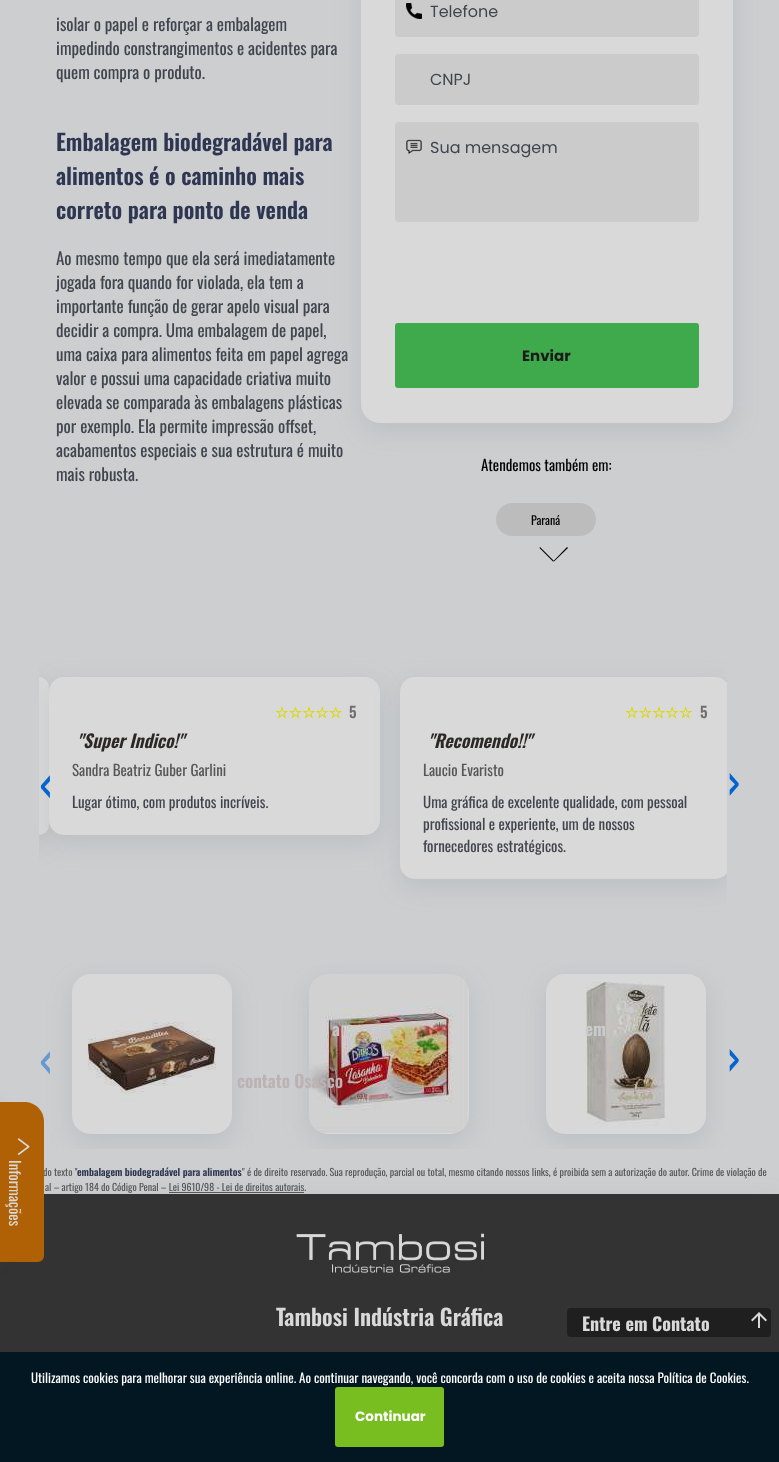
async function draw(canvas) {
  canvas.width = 779;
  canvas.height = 1462;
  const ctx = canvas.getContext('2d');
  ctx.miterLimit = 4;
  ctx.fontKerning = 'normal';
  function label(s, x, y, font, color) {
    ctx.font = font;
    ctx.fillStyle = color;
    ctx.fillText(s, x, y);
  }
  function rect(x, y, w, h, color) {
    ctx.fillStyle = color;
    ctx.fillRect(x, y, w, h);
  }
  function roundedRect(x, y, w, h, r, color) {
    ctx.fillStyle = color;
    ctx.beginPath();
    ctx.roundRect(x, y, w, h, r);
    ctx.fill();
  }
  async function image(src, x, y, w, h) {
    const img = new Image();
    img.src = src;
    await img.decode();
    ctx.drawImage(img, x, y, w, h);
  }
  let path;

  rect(0, 0, 779, 1462, '#ccced0');
  label('isolar o papel e reforçar a embalagem', 56, 31, '17px Oswald', '#41454e');
  label('impedindo constrangimentos e acidentes para', 56, 55, '17px Oswald', '#41454e');
  label('quem compra o produto.', 56, 79, '17px Oswald', '#41454e');
  label('Embalagem biodegradável para', 56, 151, '600 22.5px Oswald', '#2e3651');
  label('alimentos é o caminho mais', 56, 185, '600 22.5px Oswald', '#2e3651');
  label('correto para ponto de venda', 56, 219, '600 22.5px Oswald', '#2e3651');
  label('Ao mesmo tempo que ela será imediatamente', 56, 265, '17px Oswald', '#41454e');
  label('jogada fora quando for violada, ela tem a', 56, 289, '17px Oswald', '#41454e');
  label('importante função de gerar apelo visual para', 56, 313, '17px Oswald', '#41454e');
  label('decidir a compra. Uma embalagem de papel,', 56, 337, '17px Oswald', '#41454e');
  label('uma caixa para alimentos feita em papel agrega', 56, 361, '17px Oswald', '#41454e');
  label('valor e possui uma capacidade criativa muito', 56, 385, '17px Oswald', '#41454e');
  label('elevada se comparada às embalagens plásticas', 56, 409, '17px Oswald', '#41454e');
  label('por exemplo. Ela permite impressão offset,', 56, 433, '17px Oswald', '#41454e');
  label('acabamentos especiais e sua estrutura é muito', 56, 457, '17px Oswald', '#41454e');
  label('mais robusta.', 56, 481, '17px Oswald', '#41454e');
  ctx.fillStyle = '#7f858c33';
  ctx.filter = 'blur(12px)';
  ctx.beginPath();
  ctx.roundRect(361, -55, 372, 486, 19);
  ctx.fill();
  ctx.filter = 'none';
  roundedRect(361, -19, 372, 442, 19, '#d9d9d9');
  roundedRect(395, -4, 304, 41, 4, '#cbcbcb');
  await image('assets/img1.png', 406, 3, 16, 16);
  label('Telefone', 430, 17, '16px Poppins', '#41454e');
  roundedRect(395, 54, 304, 51, 4, '#cbcbcb');
  label('CNPJ', 430, 85, '16px Poppins', '#41454e');
  roundedRect(395, 122, 304, 100, 4, '#cbcbcb');
  await image('assets/img2.png', 406, 139, 16, 15);
  label('Sua mensagem', 430, 153, '16px Poppins', '#41454e');
  roundedRect(395, 323, 304, 65, 3, '#3eaa4b');
  label('Enviar', 522, 361, 'bold 15px Poppins', '#1b1b1b');
  label('Atendemos também em:', 481, 471, '15px Oswald', '#030303');
  roundedRect(496, 503, 100, 33, 16.5, '#bcbcbc');
  label('Paraná', 531, 525, '12px Oswald', '#030303');
  ctx.fillStyle = '#000';
  path = new Path2D('M540 547L554 561L553 561.5L539.5 548Z');
  ctx.fill(path);
  path = new Path2D('M553.5 561L567 547L568 548L554 561.5Z');
  ctx.fill(path);
  ctx.save();
  ctx.beginPath();
  ctx.rect(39, 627, 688, 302);
  ctx.clip();
  ctx.fillStyle = '#7f858c33';
  ctx.filter = 'blur(12px)';
  ctx.beginPath();
  ctx.roundRect(-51, 685, 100, 158, 15);
  ctx.fill();
  ctx.filter = 'none';
  ctx.restore();
  ctx.fillStyle = '#d9d9d9';
  ctx.beginPath();
  ctx.roundRect(39, 677, 10, 158, [0, 15, 15, 0]);
  ctx.fill();
  ctx.save();
  ctx.beginPath();
  ctx.rect(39, 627, 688, 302);
  ctx.clip();
  ctx.fillStyle = '#7f858c33';
  ctx.filter = 'blur(12px)';
  ctx.beginPath();
  ctx.roundRect(49, 685, 331, 158, 15);
  ctx.fill();
  ctx.filter = 'none';
  ctx.restore();
  roundedRect(49, 677, 331, 158, 15, '#d9d9d9');
  label('☆☆☆☆☆', 275, 718, 'bold 15px DejaVu Sans', '#d9d900');
  label('5', 349, 718, '600 15px Oswald', '#736e6e');
  label('"Super Indico!"', 77, 748, 'italic 600 18px Oswald', '#2d2727');
  label('Sandra Beatriz Guber Garlini', 72, 776, '15px Oswald', '#575757');
  label('Lugar ótimo, com produtos incríveis.', 72, 808, '15px Oswald', '#41454e');
  ctx.save();
  ctx.beginPath();
  ctx.rect(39, 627, 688, 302);
  ctx.clip();
  ctx.fillStyle = '#7f858c33';
  ctx.filter = 'blur(12px)';
  ctx.beginPath();
  ctx.roundRect(400, 685, 330, 202, 15);
  ctx.fill();
  ctx.filter = 'none';
  ctx.restore();
  label('›', 727, 800, '45px Oswald', '#0363d1');
  ctx.save();
  ctx.beginPath();
  ctx.rect(39, 627, 688, 302);
  ctx.clip();
  roundedRect(400, 677, 330, 202, 15, '#d9d9d9');
  ctx.restore();
  label('☆☆☆☆☆', 625, 718, 'bold 15px DejaVu Sans', '#d9d900');
  label('5', 700, 718, '600 15px Oswald', '#736e6e');
  label('"Recomendo!!"', 428, 748, 'italic 600 18px Oswald', '#2d2727');
  label('Laucio Evaristo', 423, 776, '15px Oswald', '#575757');
  label('Uma gráfica de excelente qualidade, com pessoal', 423, 808, '15px Oswald', '#41454e');
  label('profissional e experiente, um de nossos', 423, 830, '15px Oswald', '#41454e');
  label('fornecedores estratégicos.', 423, 852, '15px Oswald', '#41454e');
  label('‹', 39, 800, '45px Oswald', '#0363d1');
  ctx.save();
  ctx.beginPath();
  ctx.rect(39, 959, 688, 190);
  ctx.clip();
  ctx.fillStyle = '#7f858c33';
  ctx.filter = 'blur(12px)';
  ctx.beginPath();
  ctx.roundRect(72, 982, 160, 160, 19);
  ctx.fill();
  ctx.filter = 'none';
  ctx.restore();
  await image('assets/img3.png', 72, 974, 160, 160);
  ctx.save();
  ctx.beginPath();
  ctx.rect(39, 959, 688, 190);
  ctx.clip();
  ctx.fillStyle = '#7f858c33';
  ctx.filter = 'blur(12px)';
  ctx.beginPath();
  ctx.roundRect(309, 982, 160, 160, 19);
  ctx.fill();
  ctx.filter = 'none';
  ctx.restore();
  await image('assets/img4.png', 309, 974, 160, 160);
  label('a', 332, 1036, '600 17.5px Oswald', '#c6c3c2');
  label('contato Osasco', 237, 1088, '600 17.5px Oswald', '#bcb1b3');
  ctx.save();
  ctx.beginPath();
  ctx.rect(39, 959, 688, 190);
  ctx.clip();
  ctx.fillStyle = '#7f858c33';
  ctx.filter = 'blur(12px)';
  ctx.beginPath();
  ctx.roundRect(546, 982, 160, 160, 19);
  ctx.fill();
  ctx.filter = 'none';
  ctx.restore();
  await image('assets/img5.png', 546, 974, 160, 160);
  label('em', 585, 1036, '600 17.5px Oswald', '#cacbcc');
  label('‹', 39, 1076, '45px Oswald', '#6798d0');
  label('›', 727, 1076, '45px Oswald', '#0363d1');
  ctx.fillStyle = '#7f858c33';
  ctx.filter = 'blur(12px)';
  ctx.beginPath();
  ctx.rect(0, 1202, 779, 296);
  ctx.fill();
  ctx.filter = 'none';
  label('do texto "', 43, 1176, '10px Oswald', '#575757');
  label('embalagem biodegradável para alimentos', 77, 1176, '600 10px Oswald', '#2e3651');
  label('" é de direito reservado. Sua reprodução, parcial ou total, mesmo citando nossos links, é proibida sem a autorização do autor. Crime de violação de', 242, 1176, '10px Oswald', '#575757');
  label('al – artigo 184 do Código Penal – Lei 9610/98 - Lei de direitos autorais.', 45, 1191, '10px Oswald', '#575757');
  rect(169, 1192, 135, 1, '#575757');
  rect(0, 1194, 779, 158, '#333');
  ctx.fillStyle = '#717171';
  ctx.filter = 'blur(12px)';
  ctx.beginPath();
  ctx.rect(-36, 1109, 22, 144);
  ctx.fill();
  ctx.filter = 'none';
  ctx.fillStyle = '#b06106';
  path = new Path2D('M44 1122V1256C44 1259 41 1262 38 1262H-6V1102H24C35 1102 44 1110 44 1122Z');
  ctx.fill(path);
  await image('assets/img6.png', 17, 1138, 13, 17);
  ctx.font = '15px Oswald';
  ctx.fillStyle = '#d9d9d9';
  ctx.save();
  ctx.translate(9, 1160);
  ctx.rotate(90 * Math.PI / 180);
  ctx.fillText('Informações', 0, 0);
  ctx.restore();
  await image('assets/img7.png', 296, 1233, 188, 40);
  label('Tambosi Indústria Gráfica', 276, 1326, '600 22.5px Oswald', '#d9d9d9');
  roundedRect(567, 1308, 204, 29, 4, '#1f1f1f');
  label('Entre em Contato', 582, 1331, 'bold 18px Oswald', '#d9d9d9');
  await image('assets/img8.png', 751, 1312, 16, 16);
  rect(0, 1352, 779, 110, '#021722');
  label('Utilizamos cookies para melhorar sua experiência online. Ao continuar navegando, você concorda com o uso de cookies e aceita nossa Política de Cookies.', 31, 1383, '13px Oswald', '#fff');
  roundedRect(335, 1387, 109, 60, 3, '#78be20');
  label('Continuar', 355, 1421, 'bold 13.5px Poppins', '#fff');
}

draw(document.querySelector('canvas'));
